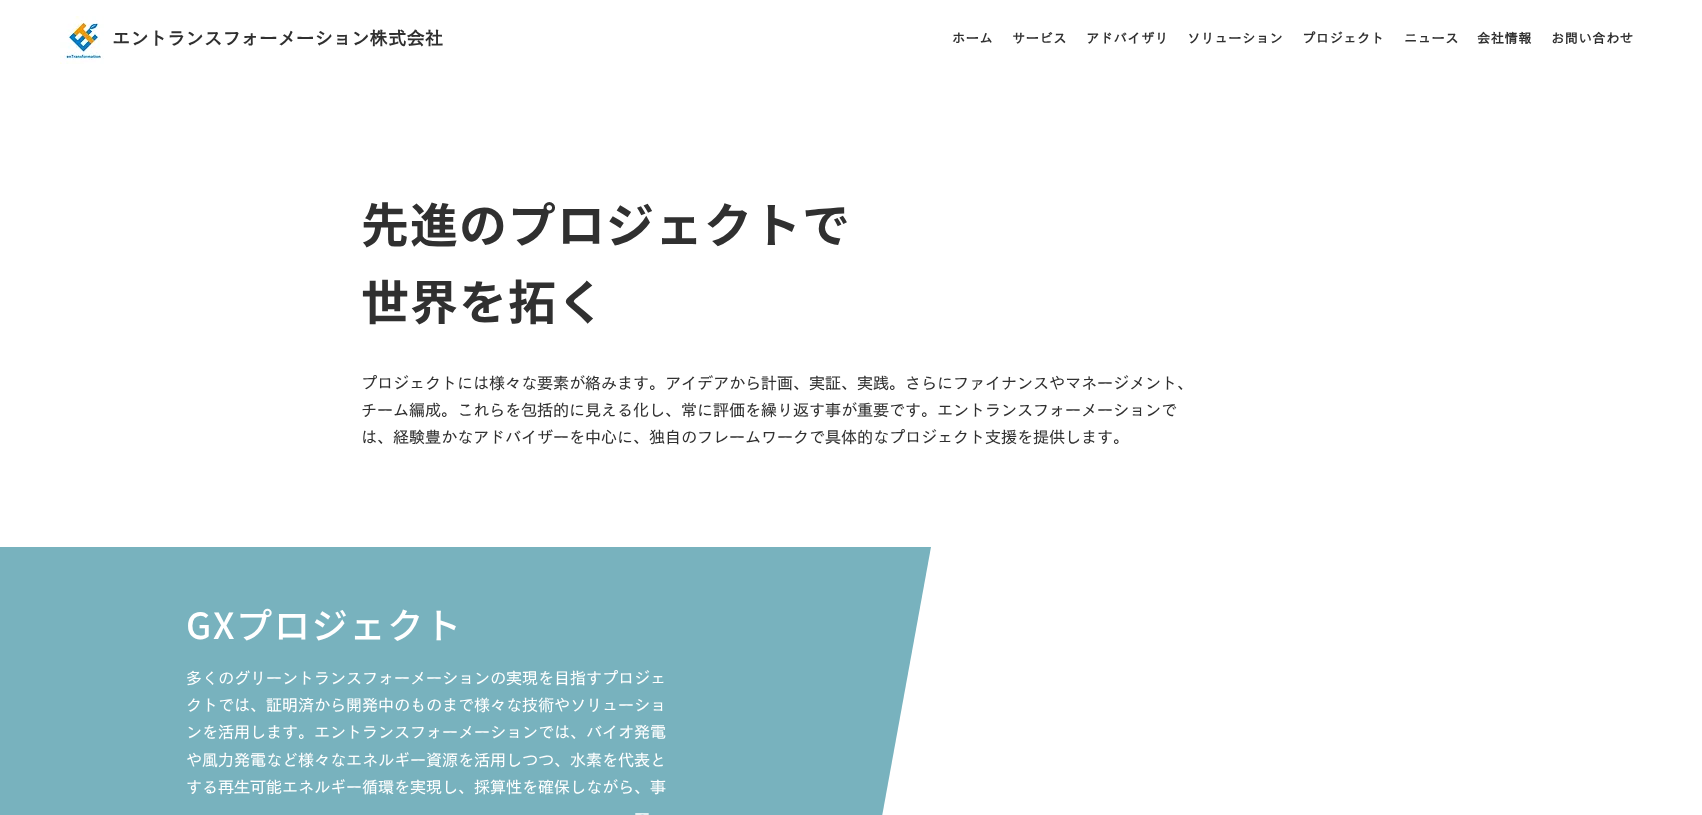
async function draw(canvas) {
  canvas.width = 1702;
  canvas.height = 815;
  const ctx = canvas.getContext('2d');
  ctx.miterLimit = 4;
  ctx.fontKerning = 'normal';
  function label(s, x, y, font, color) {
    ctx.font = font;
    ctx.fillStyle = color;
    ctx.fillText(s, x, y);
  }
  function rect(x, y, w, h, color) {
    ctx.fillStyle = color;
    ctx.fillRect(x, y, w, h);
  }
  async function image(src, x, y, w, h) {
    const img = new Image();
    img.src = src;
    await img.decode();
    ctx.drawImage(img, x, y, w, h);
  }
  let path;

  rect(0, 0, 1702, 815, '#fff');
  await image('assets/img1.png', 60, 16, 44, 48);
  ctx.letterSpacing = '0.4px';
  label('エントランスフォーメーション株式会社', 112, 45, 'bold 18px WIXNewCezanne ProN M', '#303030');
  ctx.letterSpacing = '0.75px';
  label('ホーム', 952, 43, 'bold 13px WIXNewCezanne ProN M', '#303030');
  label('サービス', 1012, 43, 'bold 13px WIXNewCezanne ProN M', '#303030');
  label('アドバイザリ', 1086, 43, 'bold 13px WIXNewCezanne ProN M', '#303030');
  label('ソリューション', 1187, 43, 'bold 13px WIXNewCezanne ProN M', '#303030');
  label('プロジェクト', 1302, 43, 'bold 13px WIXNewCezanne ProN M', '#303030');
  label('ニュース', 1404, 43, 'bold 13px WIXNewCezanne ProN M', '#303030');
  label('会社情報', 1477, 43, 'bold 13px WIXNewCezanne ProN M', '#303030');
  label('お問い合わせ', 1551, 43, 'bold 13px WIXNewCezanne ProN M', '#303030');
  ctx.letterSpacing = '1px';
  label('先進のプロジェクトで', 361, 243, 'bold 48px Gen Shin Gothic', '#303030');
  label('世界を拓く', 361, 320, 'bold 48px Gen Shin Gothic', '#303030');
  ctx.letterSpacing = '0px';
  label('プロジェクトには様々な要素が絡みます。アイデアから計画、実証、実践。さらにファイナンスやマネージメント、', 361, 389, '500 16px WIXNewCezanne ProN M', '#303030');
  label('チーム編成。これらを包括的に見える化し、常に評価を繰り返す事が重要です。エントランスフォーメーションで', 361, 416, '500 16px WIXNewCezanne ProN M', '#303030');
  label('は、経験豊かなアドバイザーを中心に、独自のフレームワークで具体的なプロジェクト支援を提供します。', 361, 443, '500 16px WIXNewCezanne ProN M', '#303030');
  rect(0, 547, 851, 268, '#78b2be');
  ctx.letterSpacing = '1.75px';
  label('GXプロジェクト', 186, 639, '500 36px Gen Shin Gothic', '#fff');
  ctx.letterSpacing = '0px';
  label('多くのグリーントランスフォーメーションの実現を目指すプロジェ', 186, 684, '500 16px WIXNewCezanne ProN M', '#fff');
  label('クトでは、証明済から開発中のものまで様々な技術やソリューショ', 186, 711, '500 16px WIXNewCezanne ProN M', '#fff');
  label('ンを活用します。エントランスフォーメーションでは、バイオ発電', 186, 738, '500 16px WIXNewCezanne ProN M', '#fff');
  label('や風力発電など様々なエネルギー資源を活用しつつ、水素を代表と', 186, 766, '500 16px WIXNewCezanne ProN M', '#fff');
  label('する再生可能エネルギー循環を実現し、採算性を確保しながら、事', 186, 793, '500 16px WIXNewCezanne ProN M', '#fff');
  label('ー', 634, 820, '500 16px WIXNewCezanne ProN M', '#fff');
  ctx.fillStyle = '#78b2be';
  path = new Path2D('M931 547H851V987Z');
  ctx.fill(path);
}

draw(document.querySelector('canvas'));
